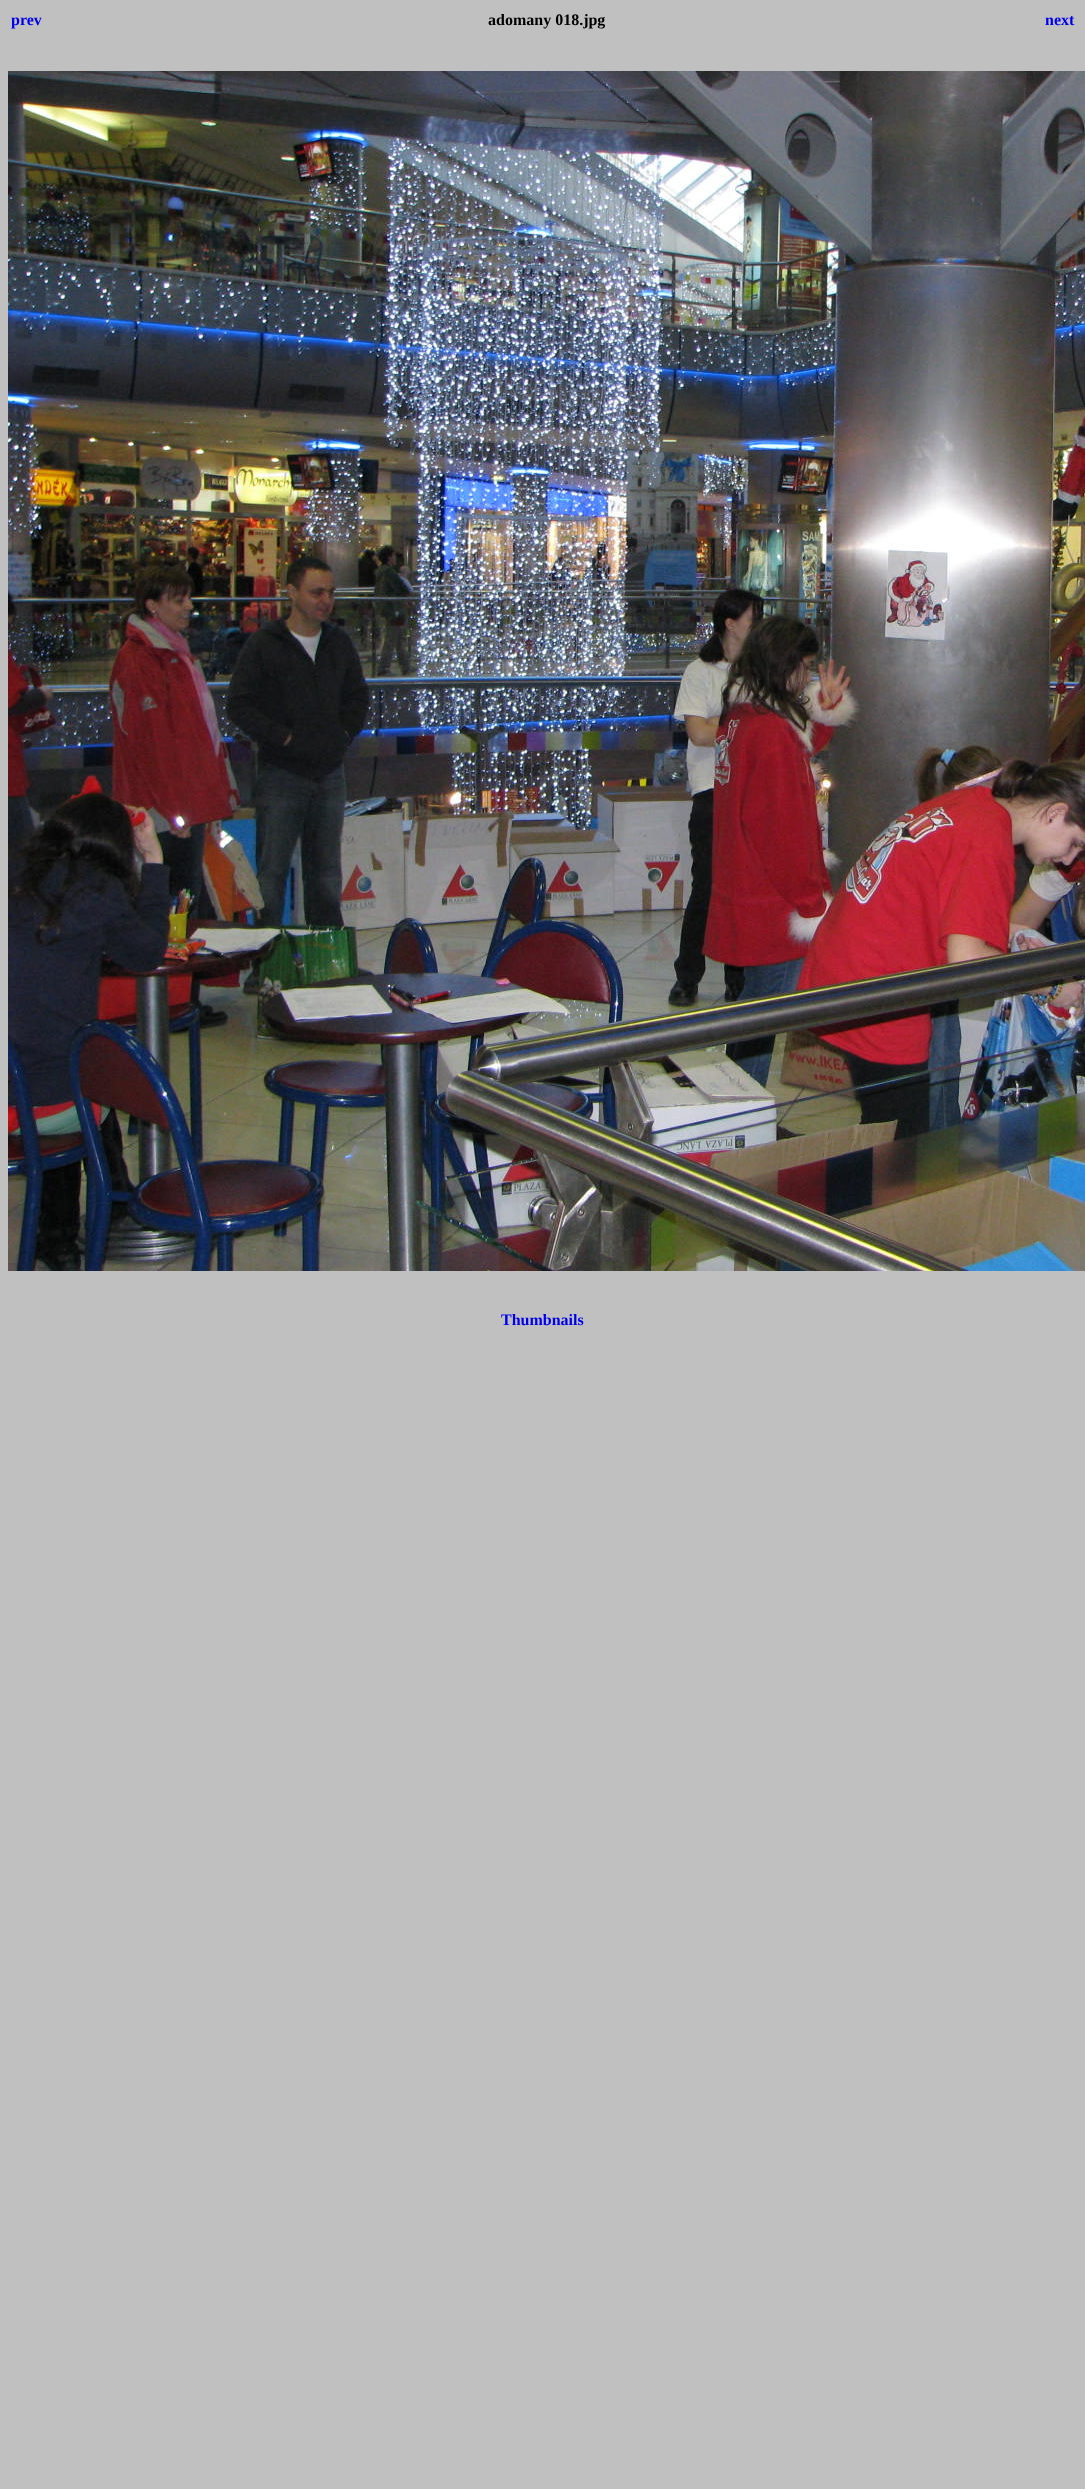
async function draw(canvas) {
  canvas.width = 1085;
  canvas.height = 2489;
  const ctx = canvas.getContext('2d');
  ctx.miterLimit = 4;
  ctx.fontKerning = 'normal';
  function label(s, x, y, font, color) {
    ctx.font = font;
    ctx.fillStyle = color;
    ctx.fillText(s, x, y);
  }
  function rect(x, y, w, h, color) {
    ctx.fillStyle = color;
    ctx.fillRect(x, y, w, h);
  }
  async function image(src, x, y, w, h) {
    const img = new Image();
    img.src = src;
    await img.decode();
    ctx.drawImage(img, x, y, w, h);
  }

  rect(0, 0, 1085, 2489, '#c0c0c0');
  label('prev', 11, 25, 'bold 16px Liberation Serif', '#00e');
  label('adomany 018.jpg', 488, 25, 'bold 16px Liberation Serif', '#000');
  label('next', 1045, 25, 'bold 16px Liberation Serif', '#00e');
  await image('assets/img1.png', 8, 71, 1077, 1200);
  label('Thumbnails', 501, 1325, 'bold 16px Liberation Serif', '#00e');
}

draw(document.querySelector('canvas'));
